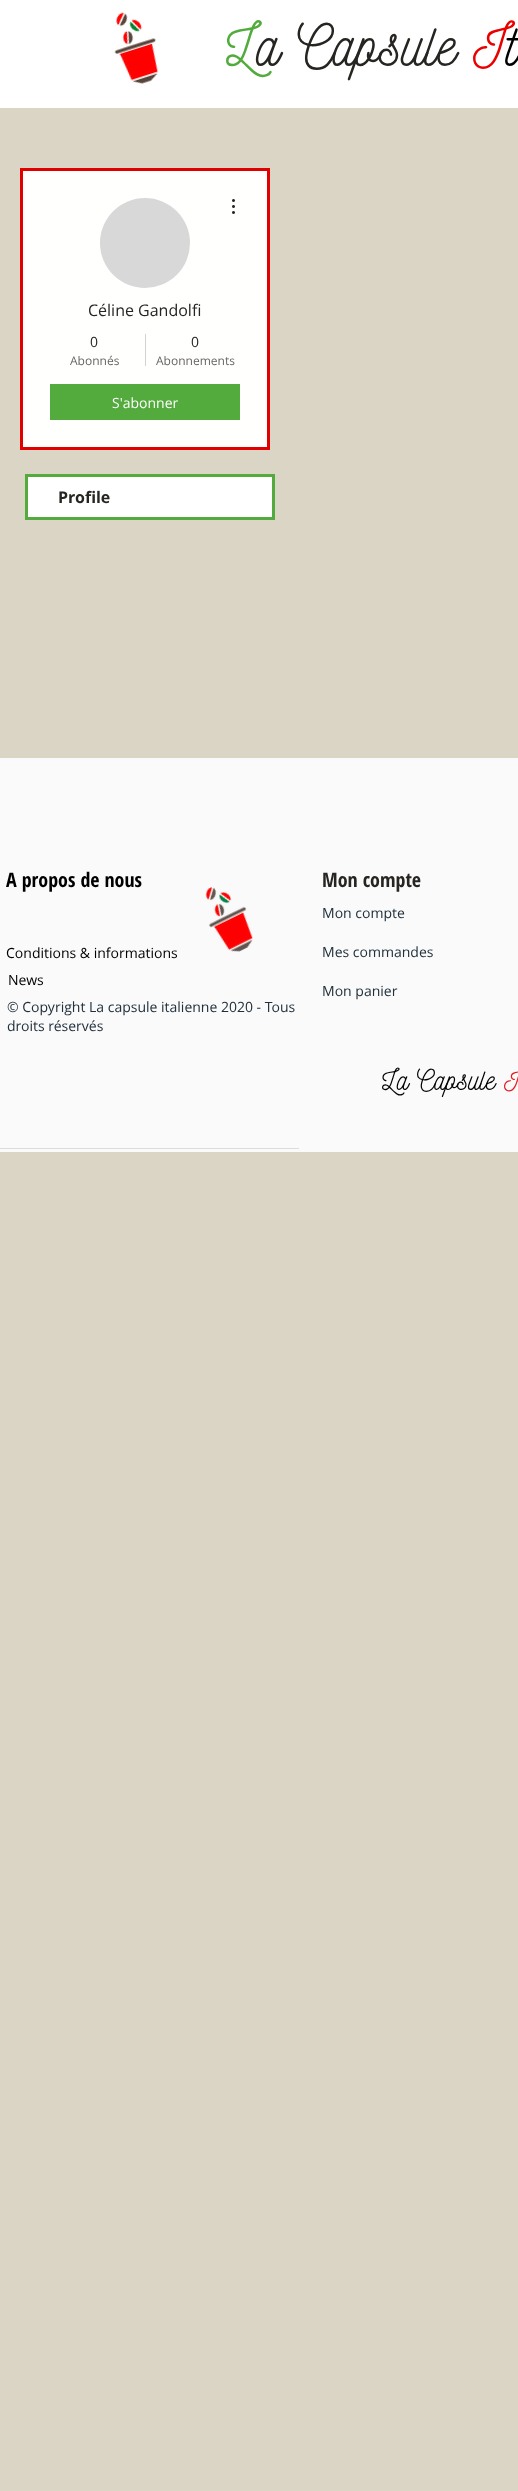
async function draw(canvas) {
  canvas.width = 518;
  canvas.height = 2491;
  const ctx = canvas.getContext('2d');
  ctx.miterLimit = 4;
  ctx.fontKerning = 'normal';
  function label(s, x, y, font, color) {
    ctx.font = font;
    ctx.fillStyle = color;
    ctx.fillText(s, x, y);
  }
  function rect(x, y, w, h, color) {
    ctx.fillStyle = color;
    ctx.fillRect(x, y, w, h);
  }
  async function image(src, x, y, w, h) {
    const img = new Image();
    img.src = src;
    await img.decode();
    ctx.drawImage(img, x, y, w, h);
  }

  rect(0, 0, 518, 2491, '#dad5c5');
  rect(0, 0, 518, 108, '#fff');
  await image('assets/img1.png', 114, 12, 45, 72);
  label('L', 226, 66, '59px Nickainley', '#52ab3c');
  label('a Capsule', 256, 66, '59px Nickainley', '#272521');
  label('I', 473, 66, '59px Nickainley', '#eb0000');
  label('t', 506, 66, '59px Nickainley', '#000');
  ctx.fillStyle = '#fffffe';
  ctx.beginPath();
  ctx.rect(21.5, 169.5, 247, 279);
  ctx.fill();
  ctx.strokeStyle = '#e00000';
  ctx.lineWidth = 3;
  ctx.stroke();
  ctx.fillStyle = '#d8d8d8';
  ctx.beginPath();
  ctx.arc(145, 243, 45, 0, 2 * Math.PI);
  ctx.fill();
  await image('assets/img2.png', 232, 199, 3, 15);
  label('Céline Gandolfi', 88, 316, '16px "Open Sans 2"', '#272521');
  label('0', 90, 347, '14px Open Sans', '#272521');
  label('Abonnés', 70, 365, '12px Open Sans', '#686663');
  rect(145, 334, 1, 32, '#d4d3d2');
  label('0', 191, 347, '14px Open Sans', '#272521');
  label('Abonnements', 156, 365, '12px Open Sans', '#686663');
  rect(50, 384, 190, 36, '#52ab3c');
  label('S\'abonner', 112, 408, '14px "Open Sans 2"', '#fffffe');
  ctx.strokeStyle = '#52ab3c';
  ctx.strokeRect(26.5, 475.5, 247, 43);
  rect(28, 477, 244, 40, '#fff');
  label('Profile', 58, 503, 'bold 16px Open Sans', '#272521');
  rect(0, 758, 518, 394, '#fafafa');
  label('A propos de nous', 6, 887, 'bold 20px Open Sans Condensed', '#000');
  label('Conditions & informations', 6, 958, '14px Open Sans', '#000');
  await image('assets/img3.png', 205, 887, 48, 65);
  label('News', 8, 985, '14px Open Sans', '#000');
  label('© Copyright La capsule italienne 2020 - Tous', 7, 1012, '14px Open Sans', '#20303c');
  label('droits réservés', 7, 1031, '14px Open Sans', '#20303c');
  rect(0, 1148, 299, 1, '#dddcd9');
  label('Mon compte', 322, 887, 'bold 20px Open Sans Condensed', '#272521');
  label('Mon compte', 322, 918, '14px Open Sans', '#20303c');
  label('Mes commandes', 322, 957, '14px Open Sans', '#20303c');
  label('Mon panier', 322, 996, '14px Open Sans', '#20303c');
  label('La Capsule', 382, 1090, '29px Nickainley', '#000');
  label('I', 504, 1090, '29px Nickainley', '#e21c21');
}

draw(document.querySelector('canvas'));
